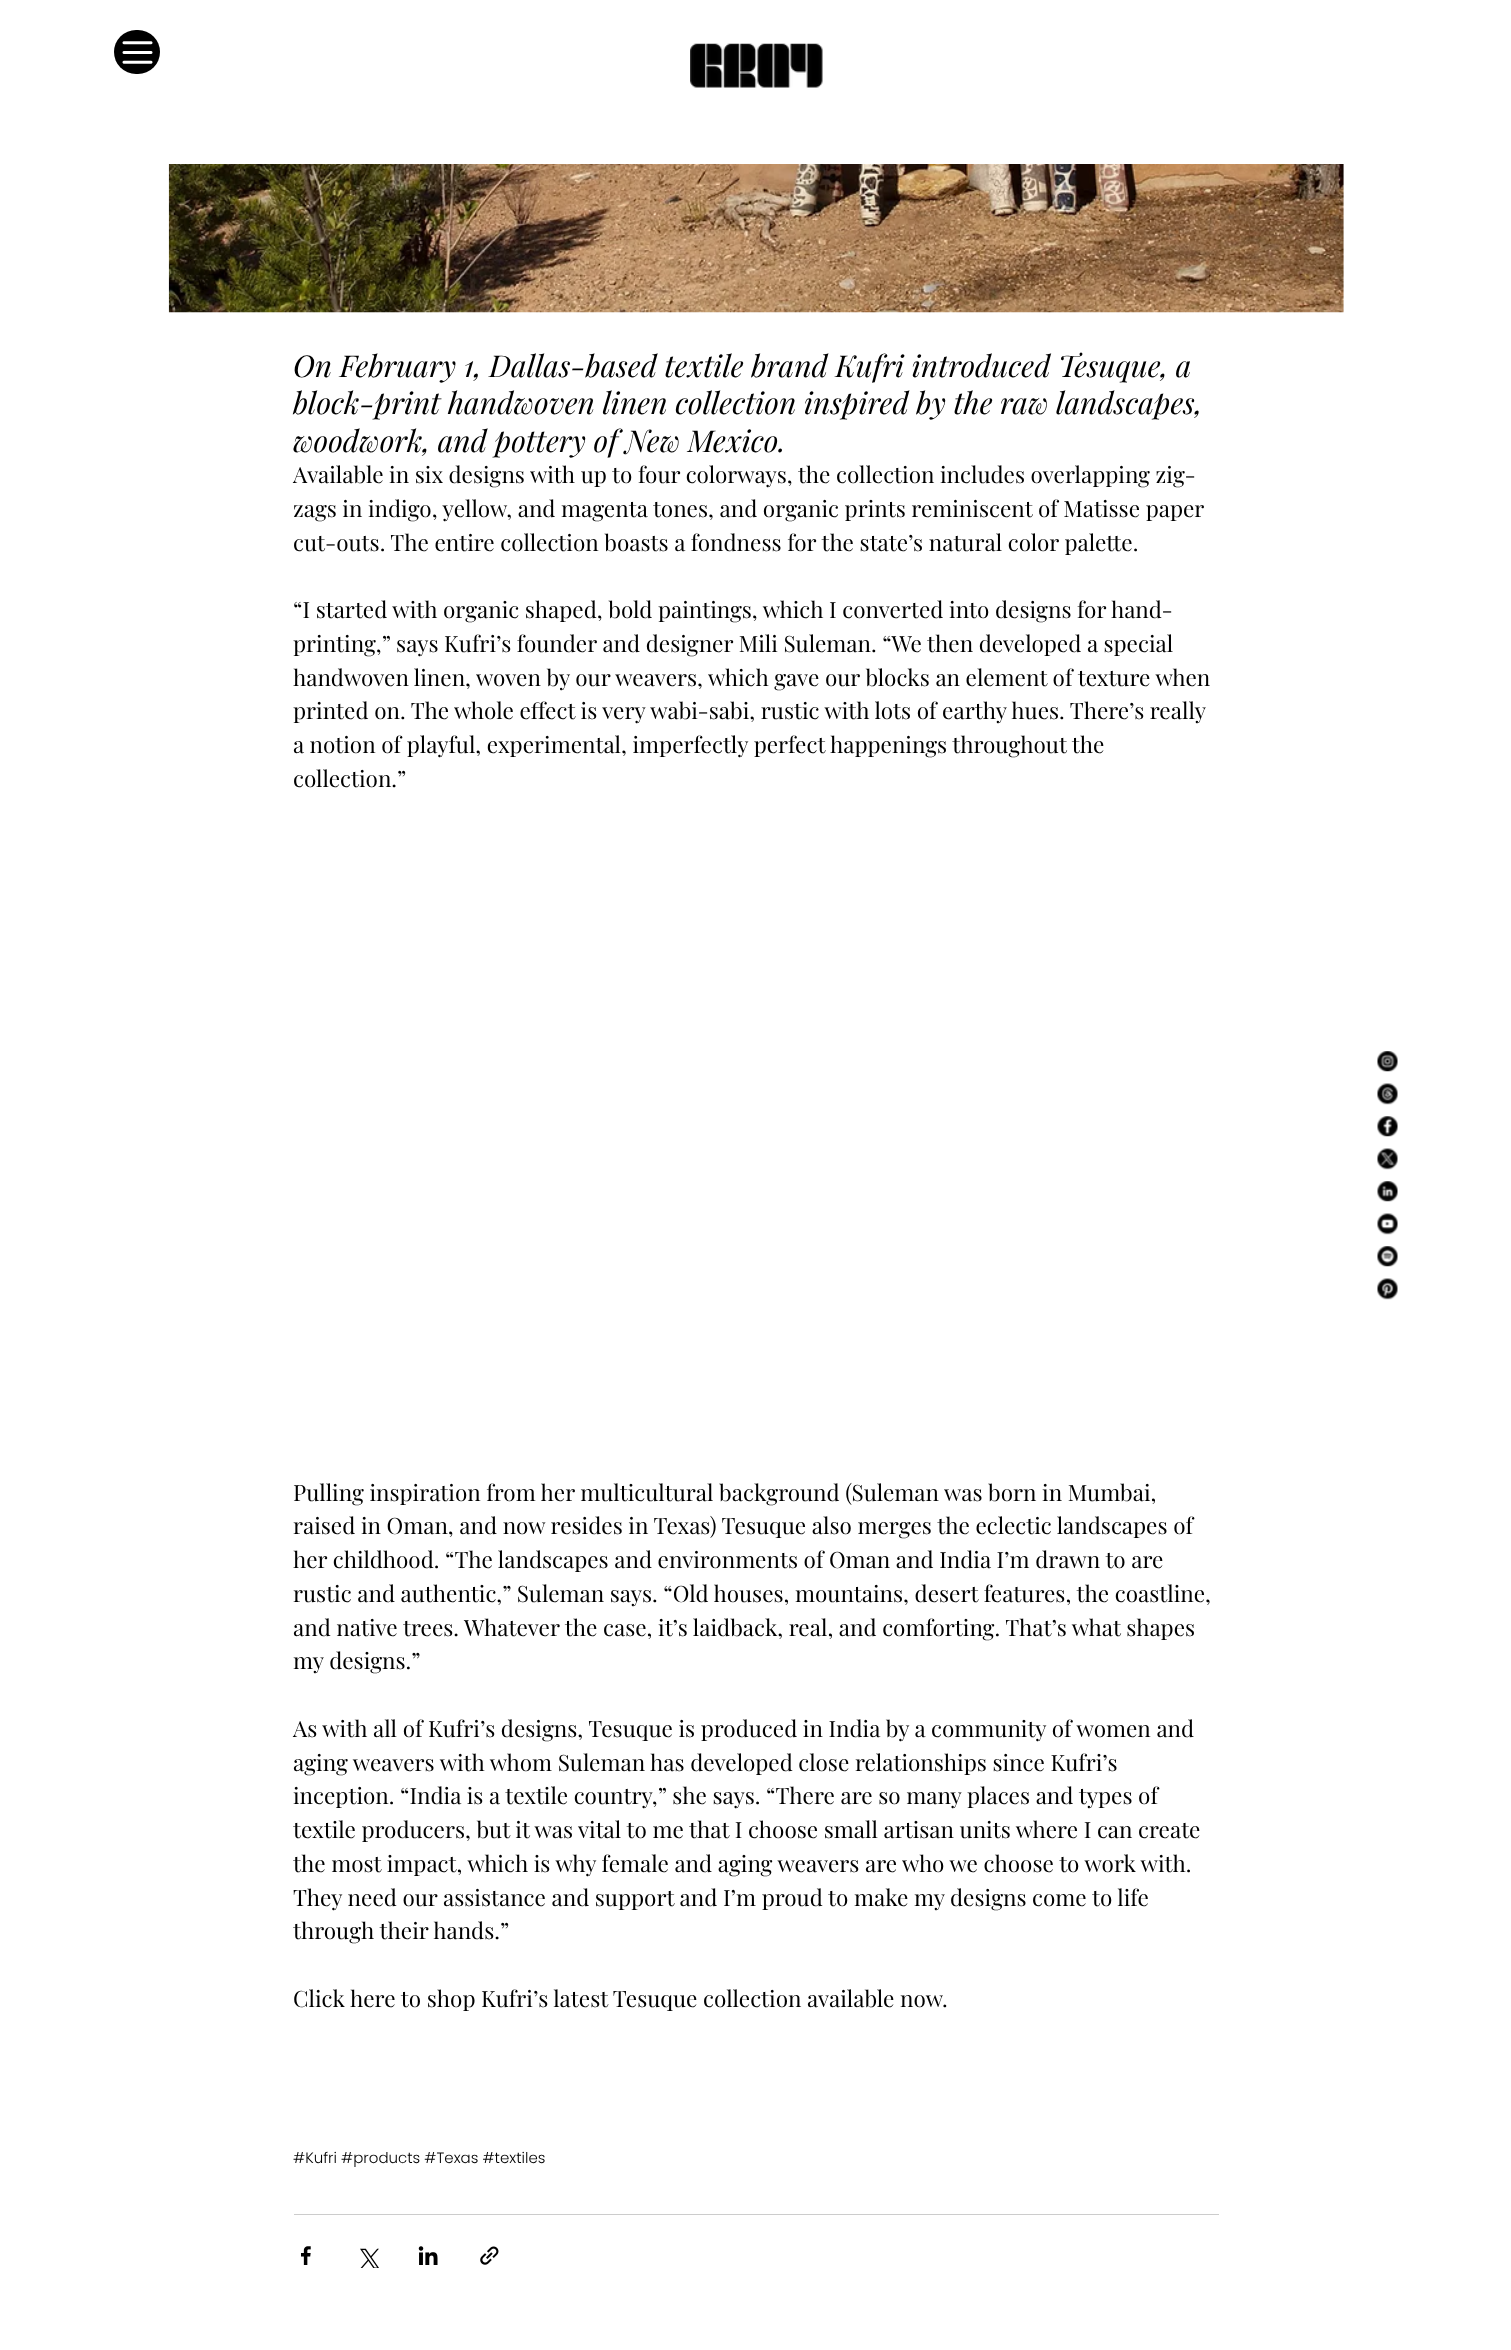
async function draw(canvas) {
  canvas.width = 1511;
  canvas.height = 2350;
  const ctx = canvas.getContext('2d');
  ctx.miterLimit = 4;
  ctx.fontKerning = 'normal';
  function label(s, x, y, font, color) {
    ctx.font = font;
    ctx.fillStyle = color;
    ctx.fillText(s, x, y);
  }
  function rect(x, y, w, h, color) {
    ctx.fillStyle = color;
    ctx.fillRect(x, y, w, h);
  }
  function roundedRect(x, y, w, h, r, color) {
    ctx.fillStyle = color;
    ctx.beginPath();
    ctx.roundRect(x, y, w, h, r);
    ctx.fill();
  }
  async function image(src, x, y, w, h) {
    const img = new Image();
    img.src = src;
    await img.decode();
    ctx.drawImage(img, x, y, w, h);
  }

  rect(0, 0, 1511, 2350, '#fff');
  roundedRect(114, 30, 46, 44, 22, '#000');
  await image('assets/img1.png', 122, 41, 31, 23);
  await image('assets/img2.png', 690, 43, 133, 45);
  await image('assets/img3.png', 168, 164, 1176, 149);
  label('On February 1, Dallas-based textile brand Kufri introduced Tesuque, a', 293, 377, 'italic 30px Playfair Display', '#000');
  label('block-print handwoven linen collection inspired by the raw landscapes,', 293, 414, 'italic 30px Playfair Display', '#000');
  label('woodwork, and pottery of New Mexico.', 293, 452, 'italic 30px Playfair Display', '#000');
  label('Available in six designs with up to four colorways, the collection includes overlapping zig-', 293, 483, '22.5px Playfair Display', '#000');
  label('zags in indigo, yellow, and magenta tones, and organic prints reminiscent of Matisse paper', 293, 517, '22.5px Playfair Display', '#000');
  label('cut-outs. The entire collection boasts a fondness for the state’s natural color palette.', 293, 551, '22.5px Playfair Display', '#000');
  label('“I started with organic shaped, bold paintings, which I converted into designs for hand-', 293, 618, '22.5px Playfair Display', '#000');
  label('printing,” says Kufri’s founder and designer Mili Suleman. “We then developed a special', 293, 652, '22.5px Playfair Display', '#000');
  label('handwoven linen, woven by our weavers, which gave our blocks an element of texture when', 293, 686, '22.5px Playfair Display', '#000');
  label('printed on. The whole effect is very wabi-sabi, rustic with lots of earthy hues. There’s really', 293, 719, '22.5px Playfair Display', '#000');
  label('a notion of playful, experimental, imperfectly perfect happenings throughout the', 293, 753, '22.5px Playfair Display', '#000');
  label('collection.”', 293, 787, '22.5px Playfair Display', '#000');
  label('Pulling inspiration from her multicultural background (Suleman was born in Mumbai,', 293, 1501, '22.5px Playfair Display', '#000');
  label('raised in Oman, and now resides in Texas) Tesuque also merges the eclectic landscapes of', 293, 1534, '22.5px Playfair Display', '#000');
  label('her childhood. “The landscapes and environments of Oman and India I’m drawn to are', 293, 1568, '22.5px Playfair Display', '#000');
  label('rustic and authentic,” Suleman says. “Old houses, mountains, desert features, the coastline,', 293, 1602, '22.5px Playfair Display', '#000');
  label('and native trees. Whatever the case, it’s laidback, real, and comforting. That’s what shapes', 293, 1636, '22.5px Playfair Display', '#000');
  label('my designs.”', 293, 1669, '22.5px Playfair Display', '#000');
  label('As with all of Kufri’s designs, Tesuque is produced in India by a community of women and', 293, 1737, '22.5px Playfair Display', '#000');
  label('aging weavers with whom Suleman has developed close relationships since Kufri’s', 293, 1771, '22.5px Playfair Display', '#000');
  label('inception. “India is a textile country,” she says. “There are so many places and types of', 293, 1804, '22.5px Playfair Display', '#000');
  label('textile producers, but it was vital to me that I choose small artisan units where I can create', 293, 1838, '22.5px Playfair Display', '#000');
  label('the most impact, which is why female and aging weavers are who we choose to work with.', 293, 1872, '22.5px Playfair Display', '#000');
  label('They need our assistance and support and I’m proud to make my designs come to life', 293, 1906, '22.5px Playfair Display', '#000');
  label('through their hands.”', 293, 1939, '22.5px Playfair Display', '#000');
  label('Click', 293, 2007, '22.5px Playfair Display', '#000');
  label('here to shop Kufri’s latest Tesuque collection available now.', 350, 2007, '22.5px Playfair Display', '#000');
  label('#Kufri #products #Texas #textiles', 293, 2163, '300 15px Poppins', '#000');
  rect(294, 2214, 925, 1, '#ccc');
  await image('assets/img4.png', 301, 2246, 10, 19);
  await image('assets/img5.png', 360, 2248, 19, 20);
  await image('assets/img6.png', 418, 2246, 20, 19);
  await image('assets/img7.png', 480, 2246, 19, 19);
  await image('assets/img8.png', 1377, 1051, 21, 21);
  await image('assets/img9.png', 1377, 1083, 21, 22);
  await image('assets/img10.png', 1377, 1116, 21, 21);
  await image('assets/img11.png', 1377, 1148, 21, 22);
  await image('assets/img12.png', 1377, 1181, 21, 21);
  await image('assets/img13.png', 1377, 1213, 21, 22);
  await image('assets/img14.png', 1377, 1246, 21, 21);
  await image('assets/img15.png', 1377, 1278, 21, 22);
}

draw(document.querySelector('canvas'));
